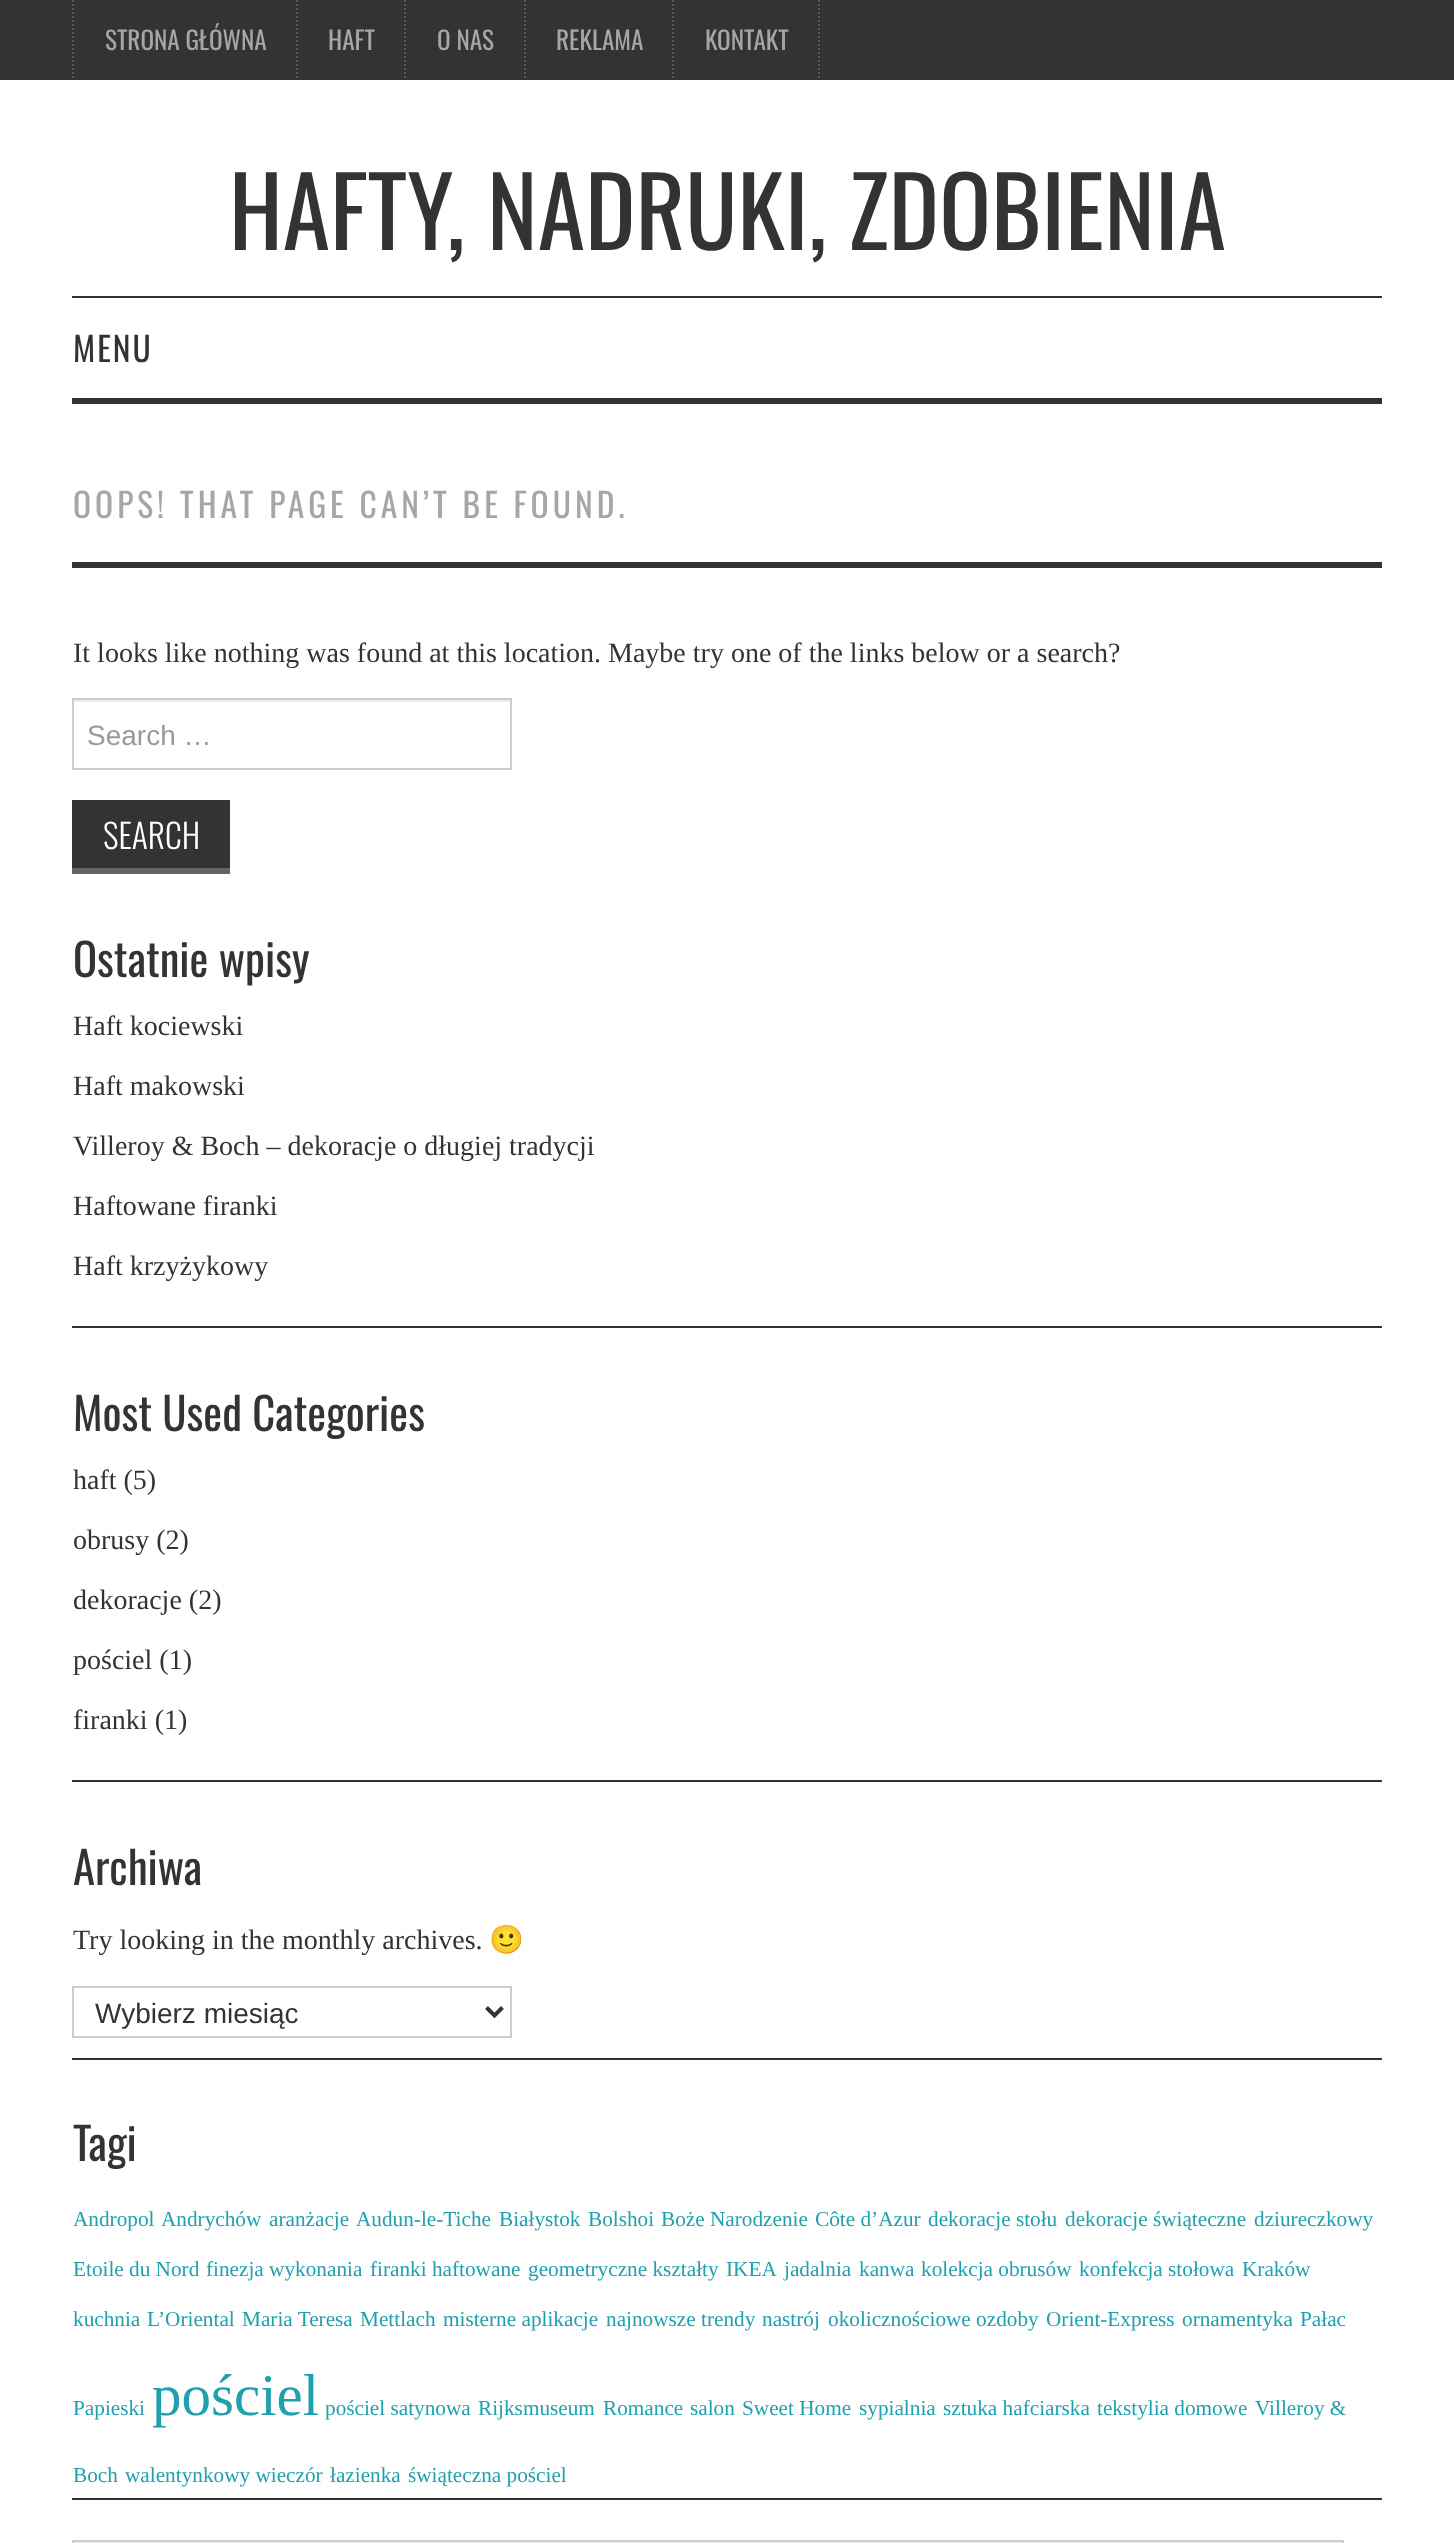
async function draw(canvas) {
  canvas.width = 1454;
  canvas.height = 2543;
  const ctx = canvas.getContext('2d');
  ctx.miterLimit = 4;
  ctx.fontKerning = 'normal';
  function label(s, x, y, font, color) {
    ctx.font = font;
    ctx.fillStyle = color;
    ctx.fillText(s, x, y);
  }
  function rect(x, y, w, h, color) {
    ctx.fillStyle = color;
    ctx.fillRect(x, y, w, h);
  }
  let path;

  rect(0, 0, 1454, 2543, '#fff');
  rect(0, 0, 1454, 80, '#333');
  path = new Path2D('M73 0V80');
  ctx.strokeStyle = '#565656';
  ctx.lineWidth = 2;
  ctx.setLineDash([2, 2]);
  ctx.stroke(path);
  path = new Path2D('M297 0V80');
  ctx.stroke(path);
  label('STRONA GŁÓWNA', 105, 50, '25.25px Oswald', '#a6a6a6');
  path = new Path2D('M405 0V80');
  ctx.stroke(path);
  label('HAFT', 328, 50, '25.25px Oswald', '#a6a6a6');
  path = new Path2D('M525 0V80');
  ctx.stroke(path);
  label('O NAS', 437, 50, '25.25px Oswald', '#a6a6a6');
  path = new Path2D('M673 0V80');
  ctx.stroke(path);
  label('REKLAMA', 556, 50, '25.25px Oswald', '#a6a6a6');
  path = new Path2D('M819 0V80');
  ctx.stroke(path);
  label('KONTAKT', 705, 50, '25.25px Oswald', '#a6a6a6');
  label('HAFTY, NADRUKI, ZDOBIENIA', 229, 250, '96px Oswald', '#333');
  rect(72, 296, 1310, 2, '#333');
  rect(72, 398, 1310, 6, '#333');
  ctx.letterSpacing = '2px';
  label('MENU', 73, 362, '33.6px Oswald', '#333');
  rect(72, 562, 1310, 6, '#333');
  ctx.letterSpacing = '4px';
  label('OOPS! THAT PAGE CAN’T BE FOUND.', 73, 518, '33.6px Oswald', '#a6a6a6');
  ctx.letterSpacing = '0px';
  label('It looks like nothing was found at this location. Maybe try one of the links below or a search?', 73, 662, '28px Liberation Serif', '#333');
  rect(74, 700, 436, 2, '#ececec');
  ctx.strokeStyle = '#ccc';
  ctx.setLineDash([]);
  ctx.strokeRect(73, 699, 438, 70);
  label('Search …', 87, 745, '28px Liberation Sans', '#999');
  rect(72, 800, 158, 68, '#333');
  rect(72, 868, 158, 6, '#666');
  label('SEARCH', 103, 849, '300 33.6px Oswald', '#fff');
  rect(72, 1326, 1310, 2, '#333');
  label('Ostatnie wpisy', 73, 977, '44.75px Oswald', '#333');
  label('Haft kociewski', 73, 1035, '28px Liberation Serif', '#333');
  label('Haft makowski', 73, 1095, '28px Liberation Serif', '#333');
  label('Villeroy & Boch – dekoracje o długiej tradycji', 73, 1155, '28px Liberation Serif', '#333');
  label('Haftowane firanki', 73, 1215, '28px Liberation Serif', '#333');
  label('Haft krzyżykowy', 73, 1275, '28px Liberation Serif', '#333');
  rect(72, 1780, 1310, 2, '#333');
  label('Most Used Categories', 73, 1431, '44.75px Oswald', '#333');
  label('haft (5)', 73, 1489, '28px Liberation Serif', '#333');
  label('obrusy (2)', 73, 1549, '28px Liberation Serif', '#333');
  label('dekoracje (2)', 73, 1609, '28px Liberation Serif', '#333');
  label('pościel (1)', 73, 1669, '28px Liberation Serif', '#333');
  label('firanki (1)', 73, 1729, '28px Liberation Serif', '#333');
  rect(72, 2058, 1310, 2, '#333');
  label('Archiwa', 73, 1885, '44.75px Oswald', '#333');
  label('Try looking in the monthly archives.', 73, 1949, '28px Liberation Serif', '#333');
  label('🙂', 489, 1949, '28px Noto Color Emoji', '#333');
  ctx.strokeRect(73, 1987, 438, 50);
  path = new Path2D('M486.5 2007.5L494.5 2015.5L502.5 2007.5');
  ctx.strokeStyle = '#333';
  ctx.lineWidth = 4;
  ctx.stroke(path);
  label('Wybierz miesiąc', 95, 2023, '28px Liberation Sans', '#333');
  rect(72, 2498, 1310, 2, '#333');
  label('Tagi', 73, 2161, '44.75px Oswald', '#333');
  label('Andropol', 73, 2226, '21.25px Liberation Serif', '#1fa0ae');
  label('Andrychów', 161, 2226, '21.25px Liberation Serif', '#1fa0ae');
  label('aranżacje', 269, 2226, '21.25px Liberation Serif', '#1fa0ae');
  label('Audun-le-Tiche', 356, 2226, '21.25px Liberation Serif', '#1fa0ae');
  label('Białystok', 499, 2226, '21.25px Liberation Serif', '#1fa0ae');
  label('Bolshoi', 588, 2226, '21.25px Liberation Serif', '#1fa0ae');
  label('Boże Narodzenie', 661, 2226, '21.25px Liberation Serif', '#1fa0ae');
  label('Côte d’Azur', 815, 2226, '21.25px Liberation Serif', '#1fa0ae');
  label('dekoracje stołu', 928, 2226, '21.25px Liberation Serif', '#1fa0ae');
  label('dekoracje świąteczne', 1065, 2226, '21.25px Liberation Serif', '#1fa0ae');
  label('dziureczkowy', 1254, 2226, '21.25px Liberation Serif', '#1fa0ae');
  label('Etoile du Nord', 73, 2276, '21.25px Liberation Serif', '#1fa0ae');
  label('finezja wykonania', 206, 2276, '21.25px Liberation Serif', '#1fa0ae');
  label('firanki haftowane', 370, 2276, '21.25px Liberation Serif', '#1fa0ae');
  label('geometryczne kształty', 528, 2276, '21.25px Liberation Serif', '#1fa0ae');
  label('IKEA', 726, 2276, '21.25px Liberation Serif', '#1fa0ae');
  label('jadalnia', 784, 2276, '21.25px Liberation Serif', '#1fa0ae');
  label('kanwa', 859, 2276, '21.25px Liberation Serif', '#1fa0ae');
  label('kolekcja obrusów', 921, 2276, '21.25px Liberation Serif', '#1fa0ae');
  label('konfekcja stołowa', 1079, 2276, '21.25px Liberation Serif', '#1fa0ae');
  label('Kraków', 1242, 2276, '21.25px Liberation Serif', '#1fa0ae');
  label('kuchnia', 73, 2326, '21.25px Liberation Serif', '#1fa0ae');
  label('L’Oriental', 147, 2326, '21.25px Liberation Serif', '#1fa0ae');
  label('Maria Teresa', 242, 2326, '21.25px Liberation Serif', '#1fa0ae');
  label('Mettlach', 360, 2326, '21.25px Liberation Serif', '#1fa0ae');
  label('misterne aplikacje', 443, 2326, '21.25px Liberation Serif', '#1fa0ae');
  label('najnowsze trendy', 606, 2326, '21.25px Liberation Serif', '#1fa0ae');
  label('nastrój', 762, 2326, '21.25px Liberation Serif', '#1fa0ae');
  label('okolicznościowe ozdoby', 828, 2326, '21.25px Liberation Serif', '#1fa0ae');
  label('Orient-Express', 1046, 2326, '21.25px Liberation Serif', '#1fa0ae');
  label('ornamentyka', 1182, 2326, '21.25px Liberation Serif', '#1fa0ae');
  label('Pałac', 1300, 2326, '21.25px Liberation Serif', '#1fa0ae');
  label('Papieski', 73, 2415, '21.25px Liberation Serif', '#1fa0ae');
  label('pościel', 152, 2415, '59px Liberation Serif', '#1fa0ae');
  label('pościel satynowa', 325, 2415, '21.25px Liberation Serif', '#1fa0ae');
  label('Rijksmuseum', 478, 2415, '21.25px Liberation Serif', '#1fa0ae');
  label('Romance', 603, 2415, '21.25px Liberation Serif', '#1fa0ae');
  label('salon', 690, 2415, '21.25px Liberation Serif', '#1fa0ae');
  label('Sweet Home', 742, 2415, '21.25px Liberation Serif', '#1fa0ae');
  label('sypialnia', 859, 2415, '21.25px Liberation Serif', '#1fa0ae');
  label('sztuka hafciarska', 943, 2415, '21.25px Liberation Serif', '#1fa0ae');
  label('tekstylia domowe', 1097, 2415, '21.25px Liberation Serif', '#1fa0ae');
  label('Villeroy &', 1255, 2415, '21.25px Liberation Serif', '#1fa0ae');
  label('Boch', 73, 2482, '21.25px Liberation Serif', '#1fa0ae');
  label('walentynkowy wieczór', 125, 2482, '21.25px Liberation Serif', '#1fa0ae');
  label('łazienka', 330, 2482, '21.25px Liberation Serif', '#1fa0ae');
  label('świąteczna pościel', 408, 2482, '21.25px Liberation Serif', '#1fa0ae');
  ctx.fillStyle = '#ececec';
  ctx.beginPath();
  ctx.rect(73, 2541, 1270, 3);
  ctx.fill();
  ctx.strokeStyle = '#ccc';
  ctx.lineWidth = 2;
  ctx.stroke();
}

draw(document.querySelector('canvas'));
